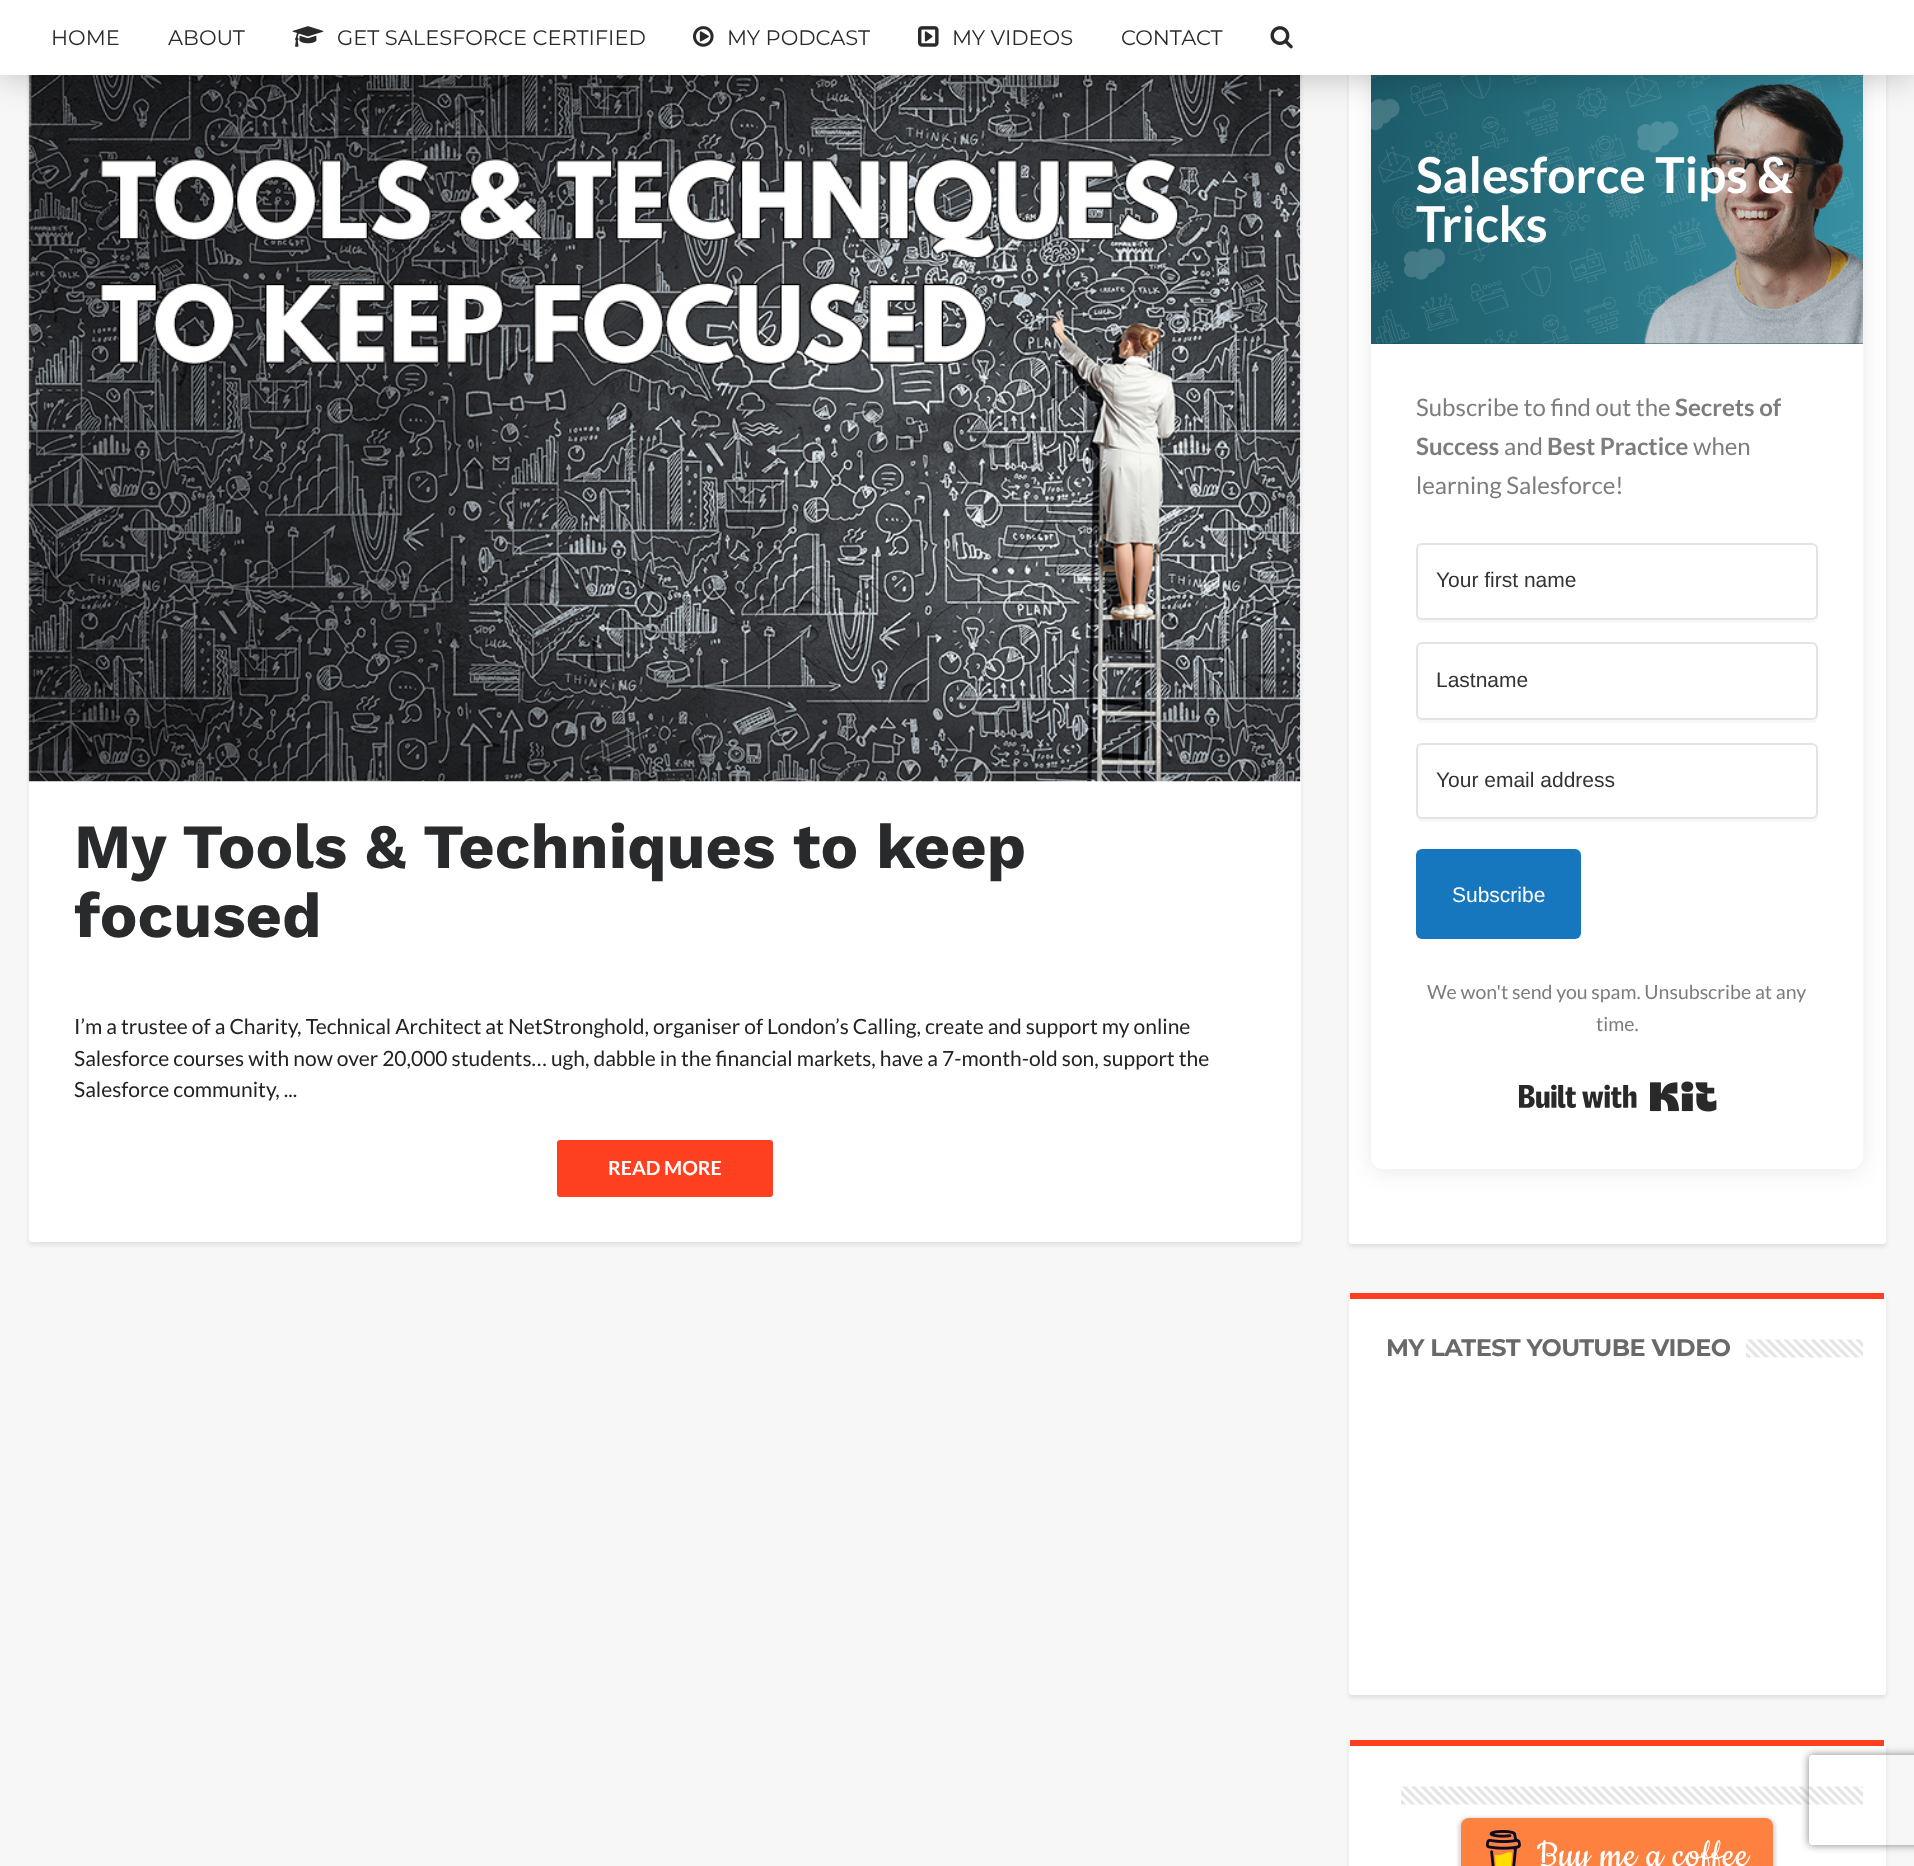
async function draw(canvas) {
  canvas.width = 1914;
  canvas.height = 1866;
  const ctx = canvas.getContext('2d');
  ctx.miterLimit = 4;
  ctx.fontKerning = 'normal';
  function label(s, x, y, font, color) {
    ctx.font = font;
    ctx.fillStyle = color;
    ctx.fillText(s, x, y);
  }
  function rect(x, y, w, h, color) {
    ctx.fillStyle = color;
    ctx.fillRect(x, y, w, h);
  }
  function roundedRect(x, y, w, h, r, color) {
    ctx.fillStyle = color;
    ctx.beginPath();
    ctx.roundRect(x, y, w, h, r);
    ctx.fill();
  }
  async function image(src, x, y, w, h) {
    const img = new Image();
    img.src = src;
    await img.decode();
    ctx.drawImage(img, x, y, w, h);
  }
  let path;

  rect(0, 0, 1914, 1866, '#f7f7f7');
  ctx.fillStyle = '#00000017';
  ctx.filter = 'blur(2px)';
  ctx.beginPath();
  ctx.roundRect(29, 12, 1272, 1233, 3);
  ctx.fill();
  ctx.filter = 'none';
  roundedRect(29, 9, 1272, 1233, 3, '#fff');
  await image('assets/img5.png', 28, 75, 1273, 707);
  ctx.fillStyle = '#00000017';
  ctx.filter = 'blur(2px)';
  ctx.beginPath();
  ctx.roundRect(1349, 12, 537, 1235, 3);
  ctx.fill();
  ctx.filter = 'none';
  roundedRect(1349, 9, 537, 1235, 3, '#fff');
  ctx.fillStyle = '#3333331a';
  ctx.filter = 'blur(11px)';
  ctx.beginPath();
  ctx.roundRect(1371, 48, 492, 1124, 12);
  ctx.fill();
  ctx.filter = 'none';
  roundedRect(1371, 45, 492, 1124, 12, '#fff');
  rect(1371, 75, 492, 269, '#1c5764');
  await image('assets/img6.png', 1371, 75, 492, 269);
  ctx.fillStyle = '#00000040';
  ctx.filter = 'blur(18px)';
  ctx.beginPath();
  ctx.rect(0, 0, 1914, 75);
  ctx.fill();
  ctx.filter = 'none';
  rect(0, 0, 1914, 75, '#fff');
  label('HOME', 51, 45, '21px Montserrat', '#282a2b');
  label('ABOUT', 168, 45, '21px Montserrat', '#282a2b');
  await image('assets/img1.png', 292, 26, 32, 21);
  label('GET SALESFORCE CERTIFIED', 337, 45, '21px Montserrat', '#282a2b');
  await image('assets/img2.png', 693, 26, 21, 21);
  label('MY PODCAST', 727, 45, '21px Montserrat', '#282a2b');
  await image('assets/img3.png', 918, 26, 21, 21);
  label('MY VIDEOS', 952, 45, '21px Montserrat', '#282a2b');
  label('CONTACT', 1121, 45, '21px Montserrat', '#282a2b');
  await image('assets/img4.png', 1270, 26, 23, 23);
  label('My Tools & Techniques to keep', 74, 868, 'bold 63px Work Sans', '#282a2b');
  label('focused', 74, 937, 'bold 63px Work Sans', '#282a2b');
  label('I’m a trustee of a Charity, Technical Architect at NetStronghold, organiser of London’s Calling, create and support my online', 74, 1034, '21px Lato', '#222');
  label('Salesforce courses with now over 20,000 students… ugh, dabble in the financial markets, have a 7-month-old son, support the', 74, 1066, '21px Lato', '#222');
  label('Salesforce community, ...', 74, 1097, '21px Lato', '#222');
  roundedRect(557, 1140, 216, 57, 3, '#ff4020');
  label('READ MORE', 608, 1175, 'bold 19.5px Lato', '#fff');
  label('Salesforce Tips &', 1416, 193, 'bold 49.5px Lato', '#fff');
  label('Tricks', 1416, 242, 'bold 49.5px Lato', '#fff');
  label('Subscribe to find out the', 1416, 416, '24px Lato', '#7d7d7d');
  label('Secrets of', 1675, 416, 'bold 24px Lato', '#7d7d7d');
  label('Success', 1416, 455, 'bold 24px Lato', '#7d7d7d');
  label('and', 1504, 455, '24px Lato', '#7d7d7d');
  label('Best Practice', 1547, 455, 'bold 24px Lato', '#7d7d7d');
  label('when', 1693, 455, '24px Lato', '#7d7d7d');
  label('learning Salesforce!', 1416, 494, '24px Lato', '#7d7d7d');
  ctx.fillStyle = '#f7f7f7';
  path = new Path2D('M1416 614V617C1416 620 1419 623 1422 623H1812C1815 623 1818 620 1818 617V614C1818 617 1815 620 1812 620H1422C1419 620 1416 617 1416 614Z');
  ctx.fill(path);
  ctx.beginPath();
  ctx.roundRect(1417, 544, 400, 75, 5);
  ctx.strokeStyle = '#e3e3e3';
  ctx.lineWidth = 2;
  ctx.stroke();
  label('Your first name', 1436, 587, '21px Liberation Sans', '#333');
  ctx.fillStyle = '#f7f7f7';
  path = new Path2D('M1416 714C1416 718 1417 723 1422 723H1813C1818 722 1818 718 1818 714C1818 717 1815 720 1812 720H1422C1419 720 1416 717 1416 714Z');
  ctx.fill(path);
  ctx.beginPath();
  ctx.roundRect(1417, 643, 400, 76, 5);
  ctx.stroke();
  label('Lastname', 1436, 687, '21px Liberation Sans', '#333');
  ctx.fillStyle = '#f7f7f7';
  path = new Path2D('M1416 813C1416 817 1417 822 1422 822H1813C1818 821 1818 817 1818 813C1818 816 1815 819 1812 819H1422C1419 819 1416 816 1416 813Z');
  ctx.fill(path);
  ctx.beginPath();
  ctx.roundRect(1417, 744, 400, 74, 5);
  ctx.stroke();
  label('Your email address', 1436, 787, '21px Liberation Sans', '#333');
  roundedRect(1416, 849, 165, 90, 6, '#1677be');
  label('Subscribe', 1452, 902, '21px Liberation Sans', '#fff');
  label('We won\'t send you spam. Unsubscribe at any', 1427, 999, '19.5px Lato', '#7d7d7d');
  label('time.', 1596, 1031, '19.5px Lato', '#7d7d7d');
  await image('assets/img7.png', 1518, 1081, 199, 31);
  ctx.fillStyle = '#00000017';
  ctx.filter = 'blur(2px)';
  ctx.beginPath();
  ctx.roundRect(1349, 1296, 537, 402, 3);
  ctx.fill();
  ctx.filter = 'none';
  roundedRect(1349, 1293, 537, 402, 3, '#fff');
  rect(1350, 1293, 534, 6, '#ff4020');
  ctx.letterSpacing = '-0.5px';
  label('MY LATEST YOUTUBE VIDEO', 1386, 1356, 'bold 24px Montserrat', '#696969');
  await image('assets/img8.png', 1746, 1339, 117, 19);
  ctx.fillStyle = '#00000017';
  ctx.filter = 'blur(2px)';
  ctx.beginPath();
  ctx.roundRect(1349, 1743, 537, 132, 3);
  ctx.fill();
  ctx.filter = 'none';
  roundedRect(1349, 1740, 537, 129, 3, '#fff');
  rect(1350, 1740, 534, 6, '#ff4020');
  await image('assets/img9.png', 1401, 1786, 462, 19);
  ctx.fillStyle = '#bebebe80';
  ctx.filter = 'blur(1.5px)';
  ctx.beginPath();
  ctx.roundRect(1458, 1817, 318, 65, 11);
  ctx.fill();
  ctx.filter = 'none';
  roundedRect(1461, 1818, 312, 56, 8, '#ff813f');
  await image('assets/img10.png', 1485, 1830, 36, 36);
  ctx.letterSpacing = '0.9px';
  label('Buy me a coffee', 1537, 1866, '42px Cookie', '#fff');
  ctx.save();
  path = new Path2D('M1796 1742H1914V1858H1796ZM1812 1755H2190C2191.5 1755 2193 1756.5 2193 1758V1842C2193 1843.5 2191.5 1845 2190 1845H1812C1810.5 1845 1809 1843.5 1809 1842V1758C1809 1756.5 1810.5 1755 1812 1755Z');
  ctx.clip(path, 'evenodd');
  ctx.fillStyle = '#808080';
  ctx.filter = 'blur(4px)';
  ctx.beginPath();
  ctx.roundRect(1809, 1755, 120, 90, 3);
  ctx.fill();
  ctx.filter = 'none';
  ctx.restore();
}

draw(document.querySelector('canvas'));
